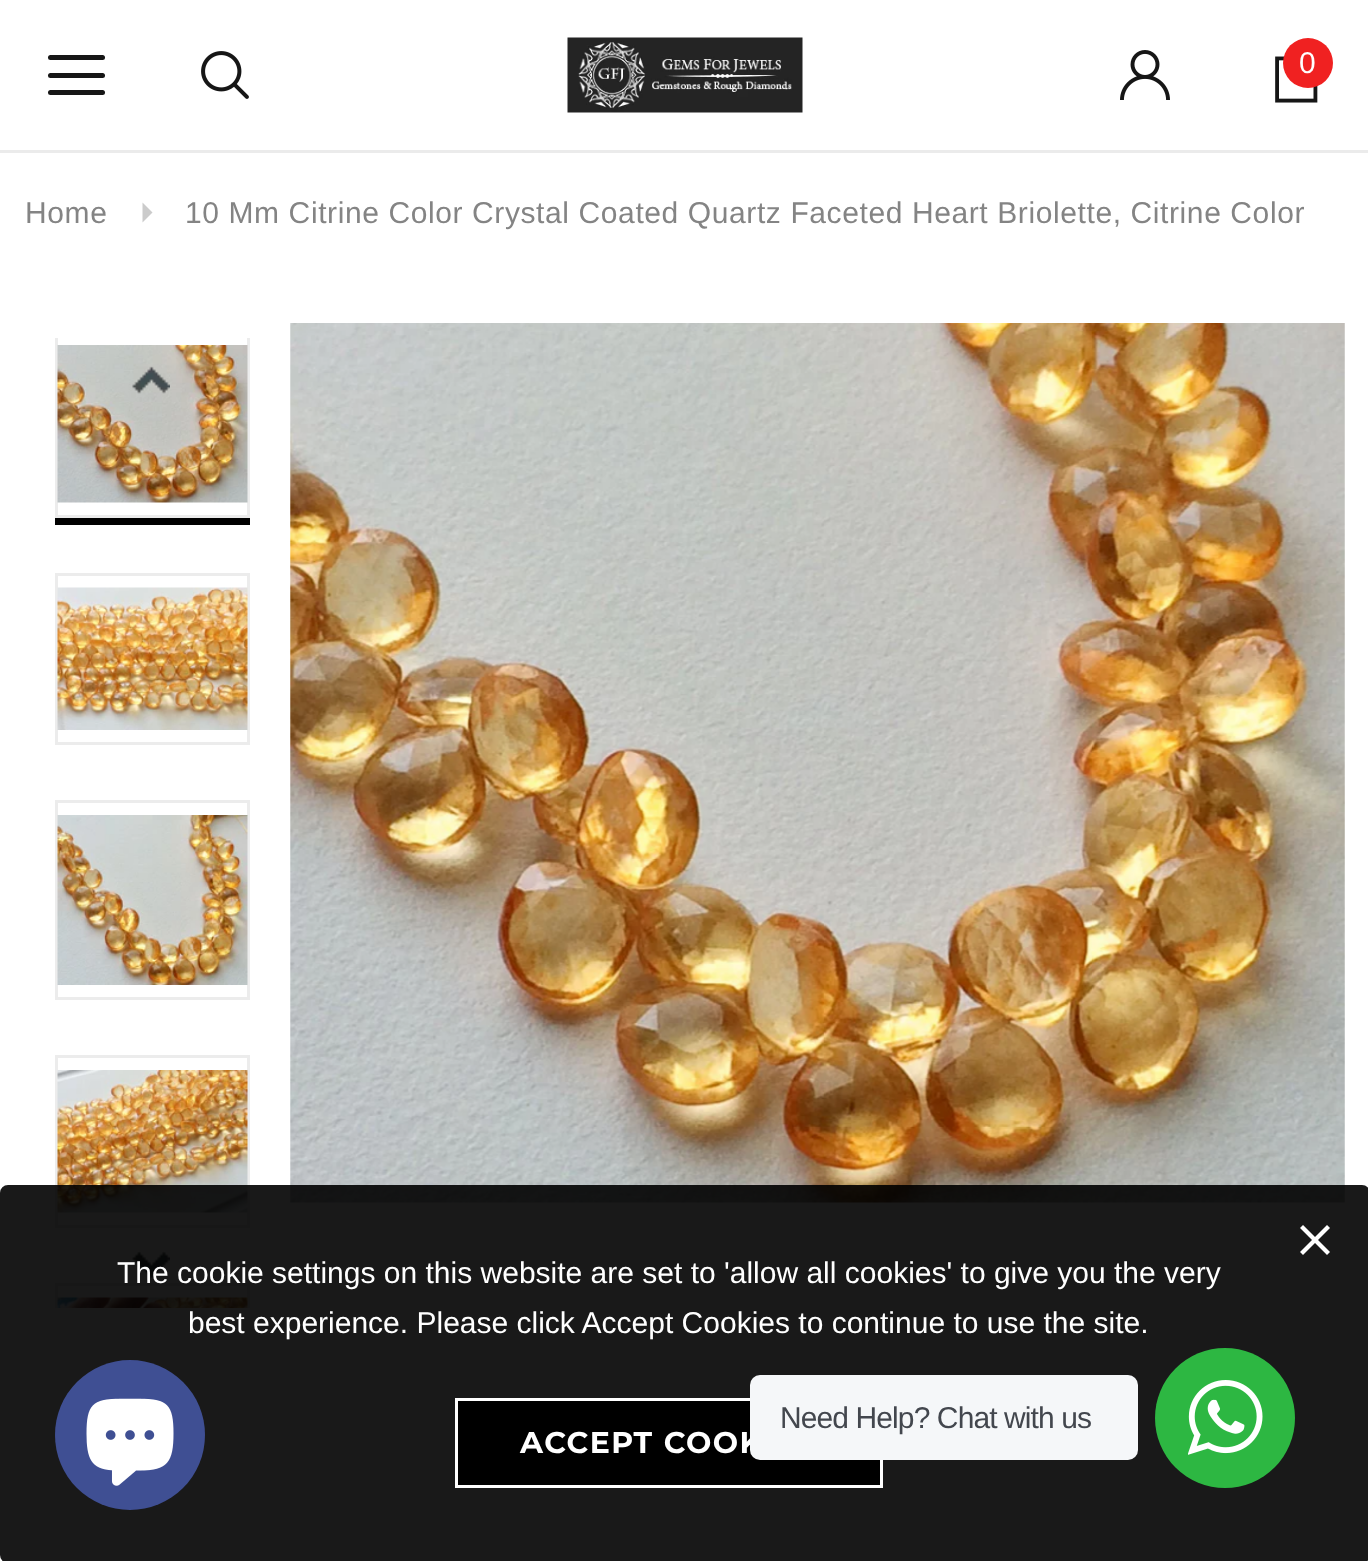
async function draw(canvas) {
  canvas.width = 1368;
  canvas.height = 1561;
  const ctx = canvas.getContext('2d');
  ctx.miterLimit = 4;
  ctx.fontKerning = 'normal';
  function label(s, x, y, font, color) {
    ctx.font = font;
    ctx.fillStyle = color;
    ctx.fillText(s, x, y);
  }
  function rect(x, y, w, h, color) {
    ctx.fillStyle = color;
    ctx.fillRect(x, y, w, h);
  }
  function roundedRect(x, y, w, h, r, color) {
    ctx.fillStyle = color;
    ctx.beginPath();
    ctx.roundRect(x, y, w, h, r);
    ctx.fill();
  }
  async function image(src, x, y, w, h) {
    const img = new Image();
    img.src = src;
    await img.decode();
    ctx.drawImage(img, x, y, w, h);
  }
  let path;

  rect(0, 0, 1368, 1561, '#fff');
  rect(0, 150, 1368, 3, '#ebebeb');
  roundedRect(48, 73, 57, 5, 2.5, '#161616');
  roundedRect(48, 55, 57, 5, 2.5, '#161616');
  roundedRect(48, 90, 57, 5, 2.5, '#161616');
  await image('assets/img1.png', 201, 51, 48, 48);
  await image('assets/img2.png', 567, 37, 236, 76);
  await image('assets/img3.png', 1120, 50, 50, 50);
  await image('assets/img4.png', 1275, 56, 43, 47);
  ctx.fillStyle = '#f02121';
  ctx.beginPath();
  ctx.arc(1308, 63, 25, 0, 2 * Math.PI);
  ctx.fill();
  ctx.letterSpacing = '0.6px';
  label('0', 1299, 73, '30px Arimo', '#fff');
  label('Home', 25, 223, '30px Arimo', '#848484');
  ctx.fillStyle = '#cbcbcb';
  path = new Path2D('M142.5 222.5V202.5L152.5 212.5Z');
  ctx.fill(path);
  label('10 Mm Citrine Color Crystal Coated Quartz Faceted Heart Briolette, Citrine Color', 185, 223, '30px Arimo', '#848484');
  rect(55, 518, 195, 7, '#000');
  ctx.save();
  ctx.beginPath();
  ctx.rect(40, 338, 225, 970);
  ctx.clip();
  ctx.strokeStyle = '#ececec';
  ctx.lineWidth = 3;
  ctx.strokeRect(56.5, 331.5, 192, 185);
  ctx.restore();
  await image('assets/img5.png', 57, 345, 191, 158);
  ctx.strokeStyle = '#ececec';
  ctx.lineWidth = 3;
  ctx.strokeRect(56.5, 574.5, 192, 169);
  await image('assets/img6.png', 57, 587, 191, 143);
  ctx.strokeRect(56.5, 801.5, 192, 197);
  await image('assets/img7.png', 57, 815, 191, 170);
  ctx.strokeRect(56.5, 1056.5, 192, 170);
  await image('assets/img8.png', 57, 1070, 191, 143);
  ctx.save();
  ctx.beginPath();
  ctx.rect(40, 338, 225, 970);
  ctx.clip();
  ctx.strokeRect(56.5, 1284.5, 192, 169);
  ctx.restore();
  await image('assets/img9.png', 57, 1297, 191, 11);
  await image('assets/img10.png', 132, 366, 38, 28);
  await image('assets/img11.png', 132, 1251, 38, 28);
  await image('assets/img12.png', 290, 323, 1055, 880);
  roundedRect(0, 1185, 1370, 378, 8, '#000000e6');
  await image('assets/img13.png', 1300, 1225, 30, 30);
  ctx.letterSpacing = '0px';
  label('The cookie settings on this website are set to \'allow all cookies\' to give you the very', 117, 1283, '30px Arimo', '#fff');
  label('best experience. Please click Accept Cookies to continue to use the site.', 188, 1333, '30px Arimo', '#fff');
  ctx.fillStyle = '#000';
  ctx.beginPath();
  ctx.rect(456.5, 1399.5, 425, 87);
  ctx.fill();
  ctx.strokeStyle = '#fff';
  ctx.stroke();
  ctx.letterSpacing = '1.5px';
  label('ACCEPT COOK', 520, 1453, 'bold 30px Montserrat', '#fff');
  ctx.fillStyle = '#3f4f93';
  ctx.beginPath();
  ctx.arc(130, 1435, 75, 0, 2 * Math.PI);
  ctx.fill();
  await image('assets/img14.png', 86, 1398, 88, 88);
  roundedRect(750, 1375, 388, 85, 10, '#f5f7f9');
  ctx.letterSpacing = '-0.9px';
  label('Need Help? Chat with us', 780, 1428, '30px Liberation Sans', '#43474e');
  ctx.fillStyle = '#2db742';
  ctx.beginPath();
  ctx.arc(1225, 1418, 70, 0, 2 * Math.PI);
  ctx.fill();
  await image('assets/img15.png', 1188, 1380, 75, 75);
}

draw(document.querySelector('canvas'));
